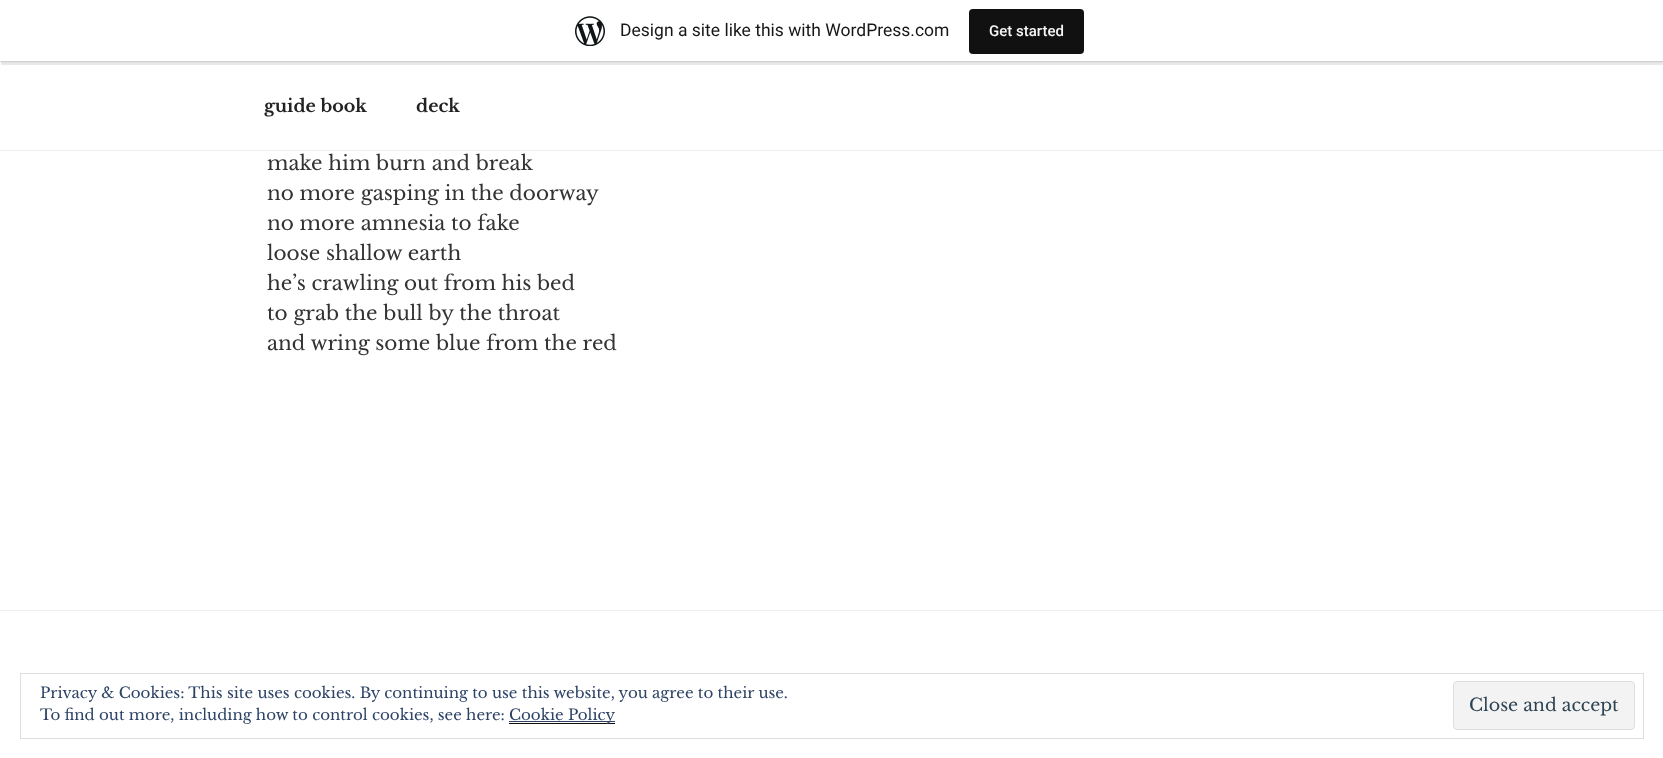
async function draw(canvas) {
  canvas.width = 1663;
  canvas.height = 758;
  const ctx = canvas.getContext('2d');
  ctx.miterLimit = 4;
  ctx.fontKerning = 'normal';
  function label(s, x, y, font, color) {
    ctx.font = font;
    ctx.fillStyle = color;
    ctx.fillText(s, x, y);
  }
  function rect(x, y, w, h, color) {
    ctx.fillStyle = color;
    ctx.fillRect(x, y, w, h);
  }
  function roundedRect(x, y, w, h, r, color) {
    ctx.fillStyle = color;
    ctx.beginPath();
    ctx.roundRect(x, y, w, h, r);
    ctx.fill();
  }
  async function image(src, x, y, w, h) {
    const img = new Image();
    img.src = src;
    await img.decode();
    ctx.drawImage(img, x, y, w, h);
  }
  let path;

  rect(0, 0, 1663, 758, '#fff');
  rect(0, 61, 1663, 1, '#eee');
  ctx.fillStyle = '#0000000d';
  ctx.filter = 'blur(1px)';
  ctx.beginPath();
  ctx.rect(0, 1, 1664, 62);
  ctx.fill();
  ctx.filter = 'none';
  ctx.fillStyle = '#00000014';
  path = new Path2D('M1 61V65H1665V4H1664V61Z');
  ctx.fill(path);
  rect(0, 0, 1663, 61, '#fff');
  await image('assets/img1.png', 575, 16, 30, 30);
  label('Design a site like this with WordPress.com', 620, 36, '17.5px Roboto', '#171717');
  roundedRect(969, 9, 115, 45, 4, '#111');
  label('Get started', 989, 36, '500 15px Roboto', '#f6f7f7');
  rect(0, 150, 1663, 1, '#eee');
  label('guide book', 264, 112, 'bold 17.5px Libre Baskerville', '#222');
  label('deck', 416, 112, 'bold 17.5px Libre Baskerville', '#222');
  label('make him burn and break', 267, 170, '20px Libre Baskerville', '#333');
  label('no more gasping in the doorway', 267, 200, '20px Libre Baskerville', '#333');
  label('no more amnesia to fake', 267, 230, '20px Libre Baskerville', '#333');
  label('loose shallow earth', 267, 260, '20px Libre Baskerville', '#333');
  label('he’s crawling out from his bed', 267, 290, '20px Libre Baskerville', '#333');
  label('to grab the bull by the throat', 267, 320, '20px Libre Baskerville', '#333');
  label('and wring some blue from the red', 267, 350, '20px Libre Baskerville', '#333');
  rect(0, 610, 1663, 1, '#eee');
  ctx.strokeStyle = '#dedede';
  ctx.strokeRect(20.5, 673.5, 1623, 65);
  label('Privacy & Cookies: This site uses cookies. By continuing to use this website, you agree to their use.', 40, 698, '15px Libre Baskerville', '#2e4467');
  label('To find out more, including how to control cookies, see here:', 40, 720, '15px Libre Baskerville', '#2e4467');
  rect(509, 723, 106, 1, '#0f0f0f');
  rect(509, 721, 106, 1, '#2e4467');
  label('Cookie Policy', 509, 720, '15px Libre Baskerville', '#2e4467');
  ctx.fillStyle = '#f3f3f3';
  ctx.beginPath();
  ctx.roundRect(1453.5, 681.5, 181, 48, 3.5);
  ctx.fill();
  ctx.stroke();
  label('Close and accept', 1469, 711, '17.5px Libre Baskerville', '#2e4453');
}

draw(document.querySelector('canvas'));
